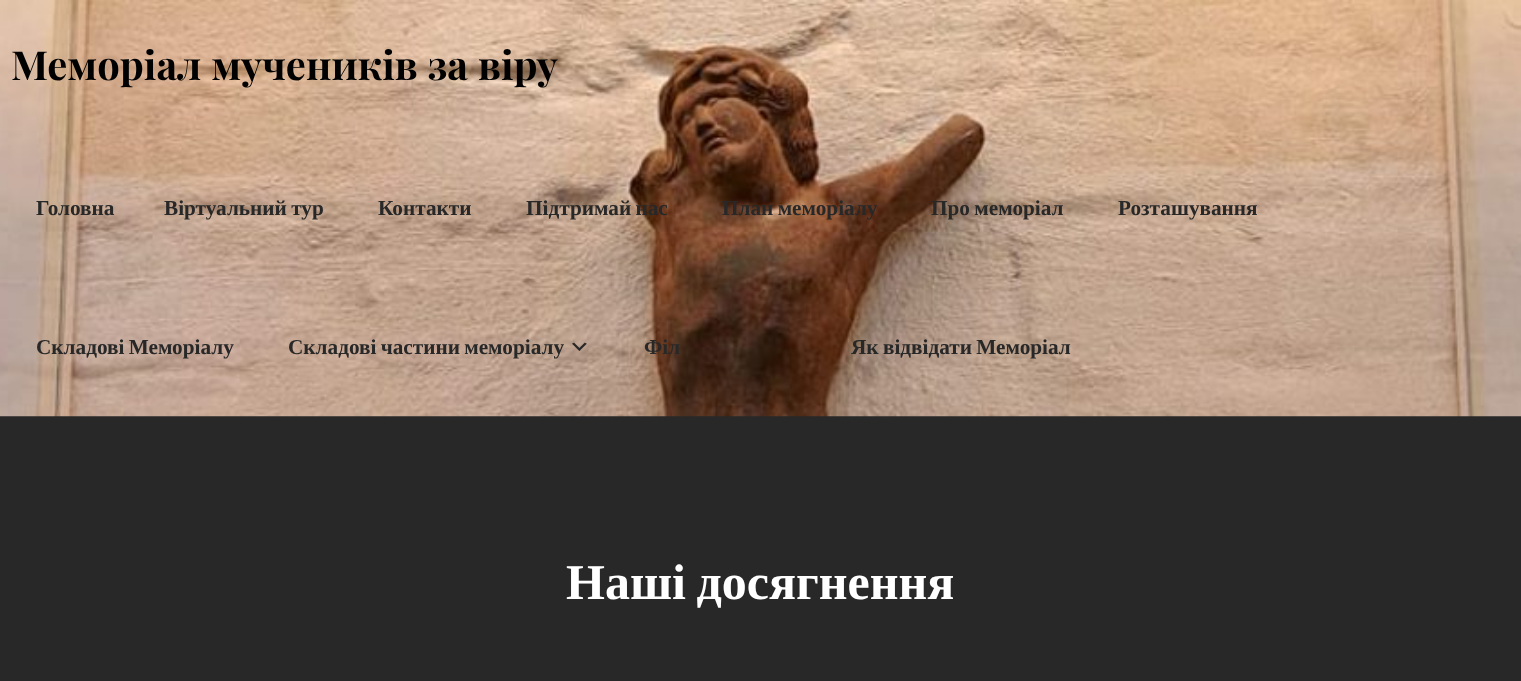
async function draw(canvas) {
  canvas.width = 1521;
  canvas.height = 681;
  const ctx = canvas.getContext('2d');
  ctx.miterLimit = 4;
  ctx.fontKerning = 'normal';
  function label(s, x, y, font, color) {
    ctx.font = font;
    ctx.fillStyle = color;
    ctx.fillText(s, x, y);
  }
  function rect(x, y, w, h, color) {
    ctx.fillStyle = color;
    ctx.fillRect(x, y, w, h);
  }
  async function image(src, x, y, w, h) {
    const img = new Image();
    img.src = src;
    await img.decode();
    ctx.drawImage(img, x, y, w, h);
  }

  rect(0, 0, 1521, 681, '#282828');
  await image('assets/img1.png', 0, 0, 1521, 417);
  label('Меморіал мучеників за віру', 11, 80, 'bold 40px Playfair Display', '#000');
  label('Головна', 36, 215, 'bold 21.25px Liberation Serif', '#282828');
  ctx.wordSpacing = '-1px';
  label('Віртуальний тур', 164, 215, 'bold 21.25px Liberation Serif', '#282828');
  ctx.wordSpacing = '0px';
  label('Контакти', 378, 215, 'bold 21.25px Liberation Serif', '#282828');
  ctx.wordSpacing = '-1px';
  label('Підтримай нас', 526, 215, 'bold 21.25px Liberation Serif', '#282828');
  label('План меморіалу', 722, 215, 'bold 21.25px Liberation Serif', '#282828');
  label('Про меморіал', 931, 215, 'bold 21.25px Liberation Serif', '#282828');
  ctx.wordSpacing = '0px';
  label('Розташування', 1118, 215, 'bold 21.25px Liberation Serif', '#282828');
  ctx.wordSpacing = '-1px';
  label('Складові Меморіалу', 36, 354, 'bold 21.25px Liberation Serif', '#282828');
  label('Складові частини меморіалу', 288, 354, 'bold 21.25px Liberation Serif', '#282828');
  await image('assets/img2.png', 572, 342, 15, 9);
  ctx.wordSpacing = '0px';
  label('Філ', 644, 354, 'bold 21.25px Liberation Serif', '#282828');
  ctx.wordSpacing = '-1px';
  label('Як відвідати Меморіал', 851, 354, 'bold 21.25px Liberation Serif', '#282828');
  ctx.wordSpacing = '-2px';
  label('Наші досягнення', 566, 599, 'bold 50px Liberation Serif', '#fff');
}

draw(document.querySelector('canvas'));
